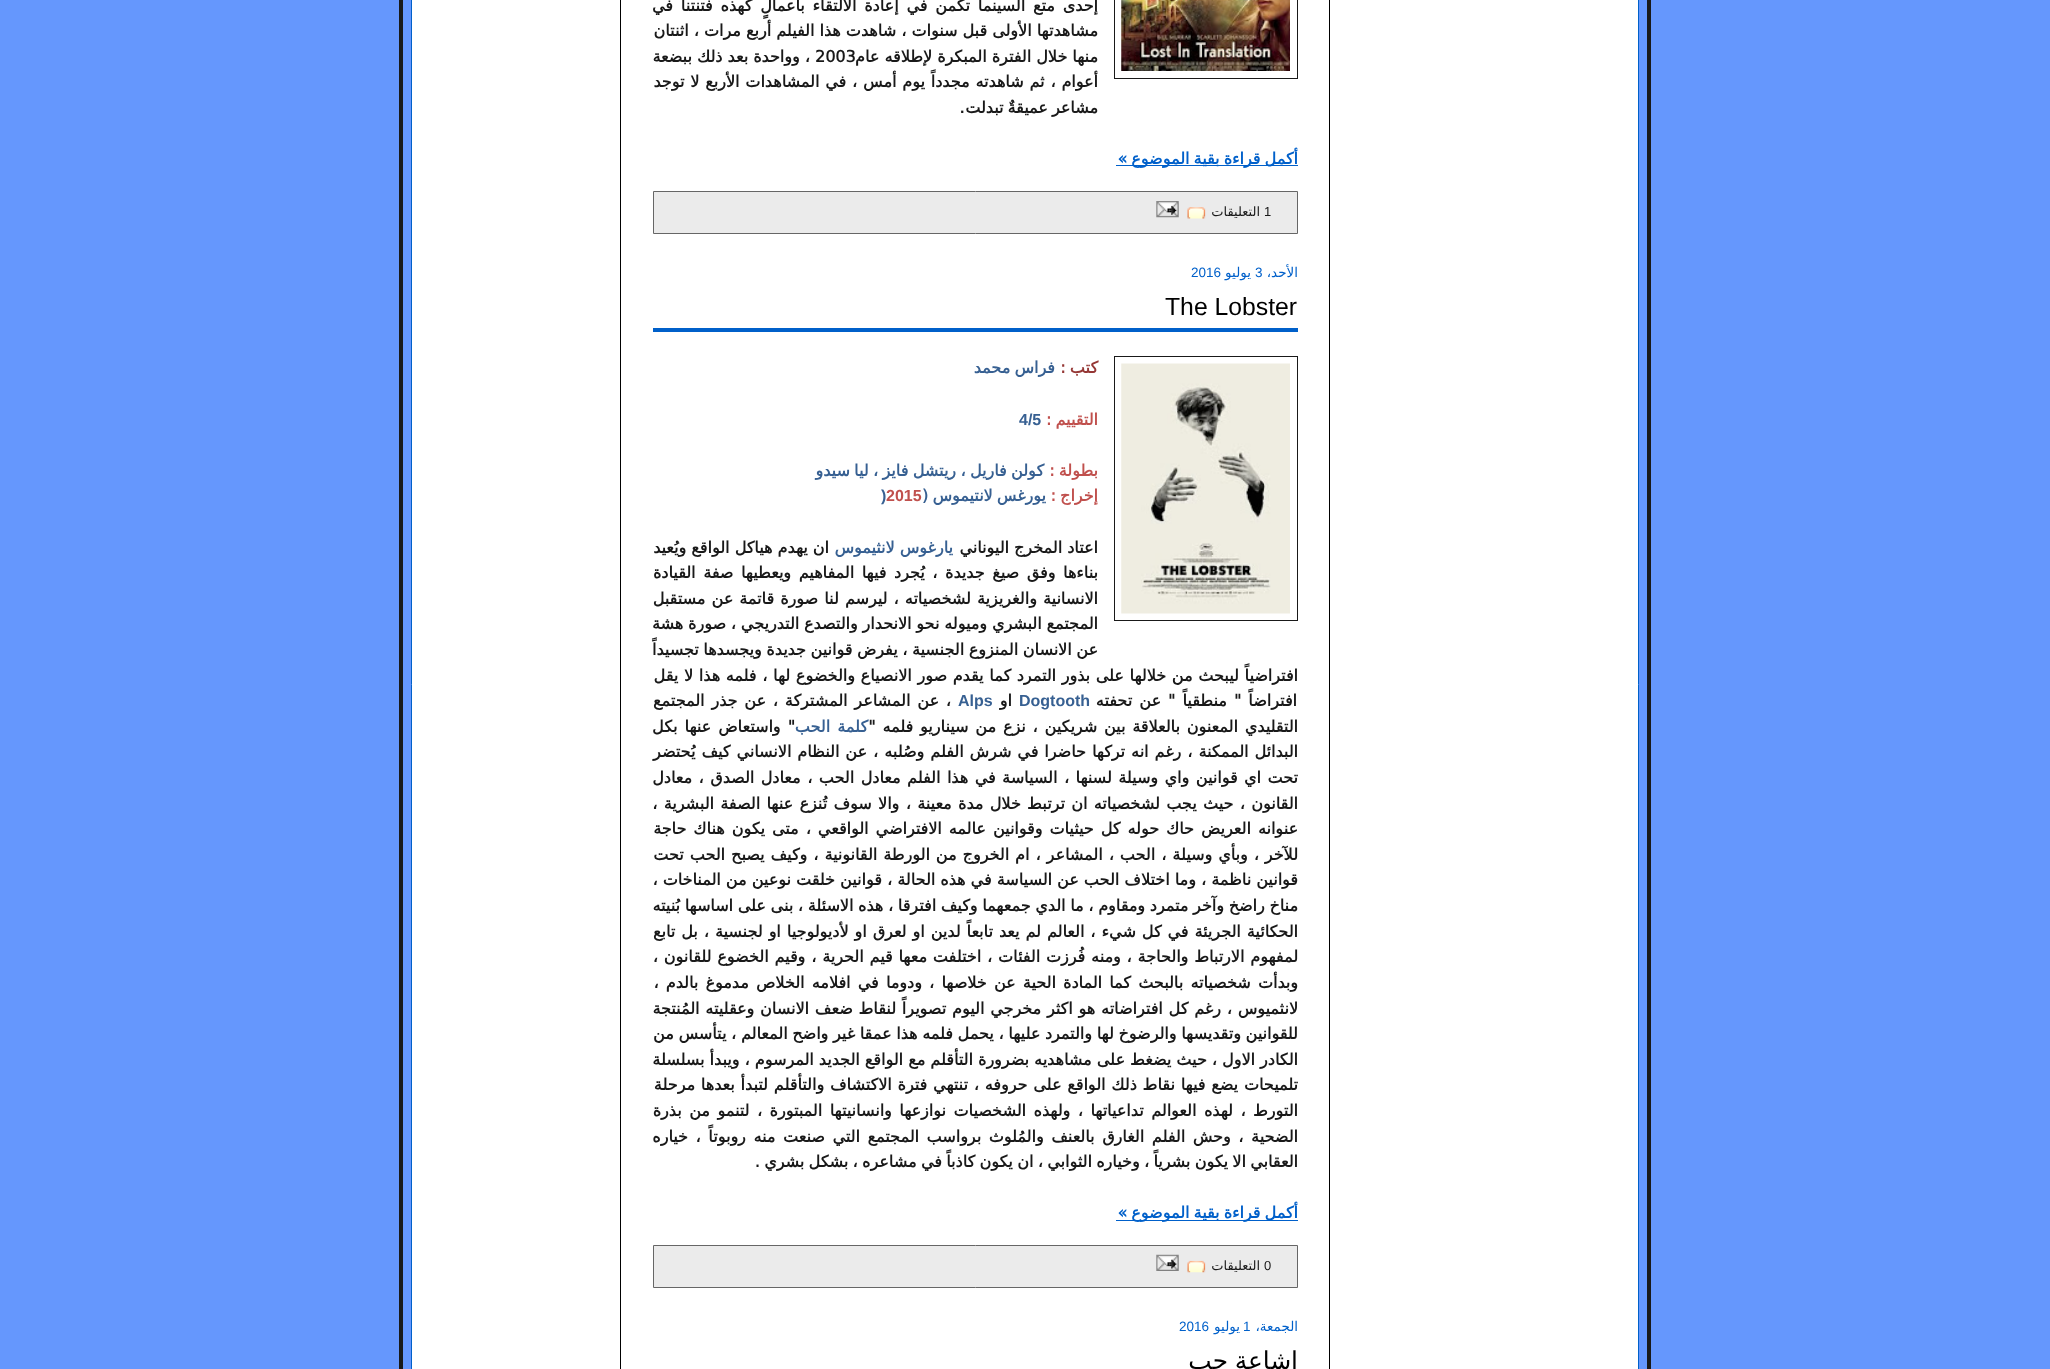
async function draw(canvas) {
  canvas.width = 2050;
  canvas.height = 1369;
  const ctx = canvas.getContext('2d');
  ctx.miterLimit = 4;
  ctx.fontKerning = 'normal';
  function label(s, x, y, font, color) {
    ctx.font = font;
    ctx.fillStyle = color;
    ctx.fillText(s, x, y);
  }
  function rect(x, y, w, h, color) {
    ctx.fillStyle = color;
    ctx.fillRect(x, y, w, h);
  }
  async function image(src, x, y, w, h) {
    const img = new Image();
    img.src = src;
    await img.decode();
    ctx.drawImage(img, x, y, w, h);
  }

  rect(0, 0, 2050, 1369, '#6597fd');
  ctx.strokeStyle = '#191919';
  ctx.lineWidth = 4;
  ctx.strokeRect(401, -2, 1248, 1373);
  ctx.fillStyle = '#fff';
  ctx.beginPath();
  ctx.rect(411.5, -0.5, 1227, 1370);
  ctx.fill();
  ctx.strokeStyle = '#0060ca';
  ctx.lineWidth = 1;
  ctx.stroke();
  ctx.strokeStyle = '#000';
  ctx.strokeRect(620.5, -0.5, 709, 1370);
  ctx.strokeStyle = '#191919';
  ctx.strokeRect(1114.5, -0.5, 183, 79);
  await image('assets/img1.png', 1121, 0, 169, 71);
  ctx.wordSpacing = '2.75px';
  ctx.direction = 'rtl';
  label('إحدى متع السينما تكمن في إعادة الالتقاء بأعمالٍ كهذه فتنتنا في', 1098, 11, 'bold 16px DejaVu Sans', '#191919');
  ctx.wordSpacing = '0px';
  label('مشاهدتها الأولى قبل سنوات ، شاهدت هذا الفيلم أربع مرات ، اثنتان', 1098, 36, 'bold 16px DejaVu Sans', '#191919');
  label('منها خلال الفترة المبكرة لإطلاقه عام', 1098, 62, 'bold 16px DejaVu Sans', '#191919');
  ctx.direction = 'ltr';
  label('2003', 815, 62, 'bold 16px DejaVu Sans', '#191919');
  ctx.direction = 'rtl';
  label('، وواحدة بعد ذلك ببضعة', 810, 62, 'bold 16px DejaVu Sans', '#191919');
  ctx.wordSpacing = '0.75px';
  label('أعوام ، ثم شاهدته مجدداً يوم أمس ، في المشاهدات الأربع لا توجد', 1098, 87, 'bold 16px DejaVu Sans', '#191919');
  ctx.wordSpacing = '-1px';
  label('مشاعر عميقةٌ تبدلت', 1098, 113, 'bold 16px DejaVu Sans', '#191919');
  ctx.wordSpacing = '0px';
  ctx.direction = 'ltr';
  label('.', 960, 113, 'bold 16px Liberation Sans', '#191919');
  rect(1116, 165, 182, 1, '#0060ca');
  ctx.wordSpacing = '-1px';
  ctx.direction = 'rtl';
  label('أكمل قراءة بقية الموضوع »', 1298, 164, 'bold 16px DejaVu Sans', '#0060ca');
  ctx.fillStyle = '#ebebeb';
  ctx.beginPath();
  ctx.rect(653.5, 191.5, 644, 42);
  ctx.fill();
  ctx.strokeStyle = '#666';
  ctx.stroke();
  ctx.wordSpacing = '0px';
  ctx.direction = 'ltr';
  label('1', 1264, 216, '13px Liberation Sans', '#191919');
  ctx.direction = 'rtl';
  label('التعليقات', 1260, 216, '13px DejaVu Sans', '#191919');
  await image('assets/img2.png', 1187, 207, 19, 12);
  await image('assets/img3.png', 1156, 201, 23, 17);
  label('الأحد،', 1298, 277, '13.5px DejaVu Sans', '#0060ca');
  ctx.direction = 'ltr';
  label('3', 1255, 277, '13.5px Liberation Sans', '#0060ca');
  ctx.direction = 'rtl';
  label('يوليو', 1251, 277, '13.5px DejaVu Sans', '#0060ca');
  ctx.direction = 'ltr';
  label('2016', 1191, 277, '13.5px Liberation Sans', '#0060ca');
  rect(653, 328, 645, 4, '#0060ca');
  label('The Lobster', 1165, 315, '24.75px Liberation Sans', '#000');
  ctx.strokeStyle = '#191919';
  ctx.strokeRect(1114.5, 356.5, 183, 264);
  await image('assets/img4.png', 1121, 363, 169, 251);
  ctx.wordSpacing = '-1px';
  ctx.direction = 'rtl';
  label('كتب :', 1098, 373, 'bold 16px DejaVu Sans', '#953735');
  ctx.wordSpacing = '-0.75px';
  label('فراس محمد', 1055, 373, 'bold 16px DejaVu Sans', '#376092');
  ctx.wordSpacing = '-1px';
  label('التقييم :', 1098, 425, 'bold 16px DejaVu Sans', '#c0504d');
  ctx.wordSpacing = '0px';
  ctx.direction = 'ltr';
  label('4/5', 1019, 425, 'bold 16px Liberation Sans', '#376092');
  ctx.wordSpacing = '-1px';
  ctx.direction = 'rtl';
  label('بطولة :', 1098, 476, 'bold 16px DejaVu Sans', '#c0504d');
  ctx.wordSpacing = '-0.75px';
  label('كولن فاريل ، ريتشل فايز ، ليا سيدو', 1044, 476, 'bold 16px DejaVu Sans', '#376092');
  ctx.wordSpacing = '-1px';
  label('إخراج :', 1098, 501, 'bold 16px DejaVu Sans', '#c0504d');
  label('يورغس لانتيموس (', 1046, 501, 'bold 16px DejaVu Sans', '#376092');
  ctx.wordSpacing = '0px';
  ctx.direction = 'ltr';
  label('2015', 886, 501, 'bold 16px Liberation Sans', '#c0504d');
  label(')', 881, 501, 'bold 16px Liberation Sans', '#376092');
  ctx.direction = 'rtl';
  label('اعتاد المخرج اليوناني', 1098, 553, 'bold 16px DejaVu Sans', '#191919');
  label('يارغوس لانثيموس', 953, 553, 'bold 16px DejaVu Sans', '#376092');
  label('ان يهدم هياكل الواقع ويُعيد', 829, 553, 'bold 16px DejaVu Sans', '#191919');
  ctx.wordSpacing = '2.5px';
  label('بناءها وفق صيغ جديدة ، يُجرد فيها المفاهيم ويعطيها صفة القيادة', 1098, 578, 'bold 16px DejaVu Sans', '#191919');
  ctx.wordSpacing = '1px';
  label('الانسانية والغريزية لشخصياته ، ليرسم لنا صورة قاتمة عن مستقبل', 1098, 604, 'bold 16px DejaVu Sans', '#191919');
  ctx.wordSpacing = '-0.25px';
  label('المجتمع البشري وميوله نحو الانحدار والتصدع التدريجي ، صورة هشة', 1098, 629, 'bold 16px DejaVu Sans', '#191919');
  ctx.wordSpacing = '-0.5px';
  label('عن الانسان المنزوع الجنسية ، يفرض قوانين جديدة ويجسدها تجسيداً', 1098, 655, 'bold 16px DejaVu Sans', '#191919');
  ctx.wordSpacing = '0.6px';
  label('افتراضياً ليبحث من خلالها على بذور التمرد كما يقدم صور الانصياع والخضوع لها ، فلمه هذا لا يقل', 1298, 681, 'bold 16px DejaVu Sans', '#191919');
  ctx.wordSpacing = '2px';
  label('افتراضاً " منطقياً " عن تحفته', 1297, 706, 'bold 16px DejaVu Sans', '#191919');
  ctx.wordSpacing = '0px';
  ctx.direction = 'ltr';
  label('Dogtooth', 1019, 706, 'bold 16px Liberation Sans', '#376092');
  ctx.direction = 'rtl';
  label('او', 1012, 706, 'bold 16px DejaVu Sans', '#191919');
  ctx.direction = 'ltr';
  label('Alps', 958, 706, 'bold 16px Liberation Sans', '#376092');
  ctx.wordSpacing = '1.75px';
  ctx.direction = 'rtl';
  label('، عن المشاعر المشتركة ، عن جذر المجتمع', 951, 706, 'bold 16px DejaVu Sans', '#191919');
  label('التقليدي المعنون بالعلاقة بين شريكين ، نزع من سيناريو فلمه "', 1298, 732, 'bold 16px DejaVu Sans', '#191919');
  ctx.wordSpacing = '2px';
  label('كلمة الحب', 868, 732, 'bold 16px DejaVu Sans', '#376092');
  label('" واستعاض عنها بكل', 795, 732, 'bold 16px DejaVu Sans', '#191919');
  ctx.wordSpacing = '0.9px';
  label('البدائل الممكنة ، رغم انه تركها حاضرا في شرش الفلم وصُلبه ، عن النظام الانساني كيف يُحتضر', 1298, 757, 'bold 16px DejaVu Sans', '#191919');
  ctx.wordSpacing = '1.4px';
  label('تحت اي قوانين واي وسيلة لسنها ، السياسة في هذا الفلم معادل الحب ، معادل الصدق ، معادل', 1298, 783, 'bold 16px DejaVu Sans', '#191919');
  ctx.wordSpacing = '1.25px';
  label('القانون ، حيث يجب لشخصياته ان ترتبط خلال مدة معينة ، والا سوف تُنزع عنها الصفة البشرية ،', 1298, 809, 'bold 16px DejaVu Sans', '#191919');
  ctx.wordSpacing = '1.9px';
  label('عنوانه العريض حاك حوله كل حيثيات وقوانين عالمه الافتراضي الواقعي ، متى يكون هناك حاجة', 1298, 834, 'bold 16px DejaVu Sans', '#191919');
  ctx.wordSpacing = '0.9px';
  label('للآخر ، وبأي وسيلة ، الحب ، المشاعر ، ام الخروج من الورطة القانونية ، وكيف يصبح الحب تحت', 1298, 860, 'bold 16px DejaVu Sans', '#191919');
  ctx.wordSpacing = '0px';
  label('قوانين ناظمة ، وما اختلاف الحب عن السياسة في هذه الحالة ، قوانين خلقت نوعين من المناخات ،', 1298, 885, 'bold 16px DejaVu Sans', '#191919');
  ctx.wordSpacing = '-0.4px';
  label('مناخ راضخ وآخر متمرد ومقاوم ، ما الدي جمعهما وكيف افترقا ، هذه الاسئلة ، بنى على اساسها بُنيته', 1298, 911, 'bold 16px DejaVu Sans', '#191919');
  ctx.wordSpacing = '0.9px';
  label('الحكائية الجريئة في كل شيء ، العالم لم يعد تابعاً لدين او لعرق او لأديولوجيا او لجنسية ، بل تابع', 1298, 937, 'bold 16px DejaVu Sans', '#191919');
  ctx.wordSpacing = '0.75px';
  label('لمفهوم الارتباط والحاجة ، ومنه فُرزت الفئات ، اختلفت معها قيم الحرية ، وقيم الخضوع للقانون ،', 1298, 962, 'bold 16px DejaVu Sans', '#191919');
  ctx.wordSpacing = '2.1px';
  label('وبدأت شخصياته بالبحث كما المادة الحية عن خلاصها ، ودوما في افلامه الخلاص مدموغ بالدم ،', 1298, 988, 'bold 16px DejaVu Sans', '#191919');
  ctx.wordSpacing = '0.75px';
  label('لانثميوس ، رغم كل افتراضاته هو اكثر مخرجي اليوم تصويراً لنقاط ضعف الانسان وعقليته المُنتجة', 1298, 1014, 'bold 16px DejaVu Sans', '#191919');
  ctx.wordSpacing = '-0.4px';
  label('للقوانين وتقديسها والرضوخ لها والتمرد عليها ، يحمل فلمه هذا عمقا غير واضح المعالم ، يتأسس من', 1298, 1039, 'bold 16px DejaVu Sans', '#191919');
  ctx.wordSpacing = '0px';
  label('الكادر الاول ، حيث يضغط على مشاهديه بضرورة التأقلم مع الواقع الجديد المرسوم ، ويبدأ بسلسلة', 1298, 1065, 'bold 16px DejaVu Sans', '#191919');
  ctx.wordSpacing = '0.75px';
  label('تلميحات يضع فيها نقاط ذلك الواقع على حروفه ، تنتهي فترة الاكتشاف والتأقلم لتبدأ بعدها مرحلة', 1298, 1090, 'bold 16px DejaVu Sans', '#191919');
  ctx.wordSpacing = '2.4px';
  label('التورط ، لهذه العوالم تداعياتها ، ولهذه الشخصيات نوازعها وانسانيتها المبتورة ، لتنمو من بذرة', 1298, 1116, 'bold 16px DejaVu Sans', '#191919');
  ctx.wordSpacing = '2.5px';
  label('الضحية ، وحش الفلم الغارق بالعنف والمُلوث برواسب المجتمع التي صنعت منه روبوتاً ، خياره', 1298, 1142, 'bold 16px DejaVu Sans', '#191919');
  ctx.wordSpacing = '-0.75px';
  label('العقابي الا يكون بشرياً ، وخياره الثوابي ، ان يكون كاذباً في مشاعره ، بشكل بشري .', 1298, 1167, 'bold 16px DejaVu Sans', '#191919');
  rect(1116, 1220, 182, 1, '#0060ca');
  ctx.wordSpacing = '-1px';
  label('أكمل قراءة بقية الموضوع »', 1298, 1218, 'bold 16px DejaVu Sans', '#0060ca');
  ctx.fillStyle = '#ebebeb';
  ctx.beginPath();
  ctx.rect(653.5, 1245.5, 644, 42);
  ctx.fill();
  ctx.strokeStyle = '#666';
  ctx.stroke();
  ctx.wordSpacing = '0px';
  ctx.direction = 'ltr';
  label('0', 1264, 1270, '13px Liberation Sans', '#191919');
  ctx.direction = 'rtl';
  label('التعليقات', 1260, 1270, '13px DejaVu Sans', '#191919');
  await image('assets/img5.png', 1187, 1260, 19, 13);
  await image('assets/img6.png', 1156, 1254, 23, 17);
  label('الجمعة،', 1298, 1331, '13.5px DejaVu Sans', '#0060ca');
  ctx.direction = 'ltr';
  label('1', 1243, 1331, '13.5px Liberation Sans', '#0060ca');
  ctx.direction = 'rtl';
  label('يوليو', 1240, 1331, '13.5px DejaVu Sans', '#0060ca');
  ctx.direction = 'ltr';
  label('2016', 1179, 1331, '13.5px Liberation Sans', '#0060ca');
  ctx.wordSpacing = '-1px';
  ctx.direction = 'rtl';
  label('إشاعة حب', 1298, 1369, '24.75px DejaVu Sans', '#000');
}

draw(document.querySelector('canvas'));
